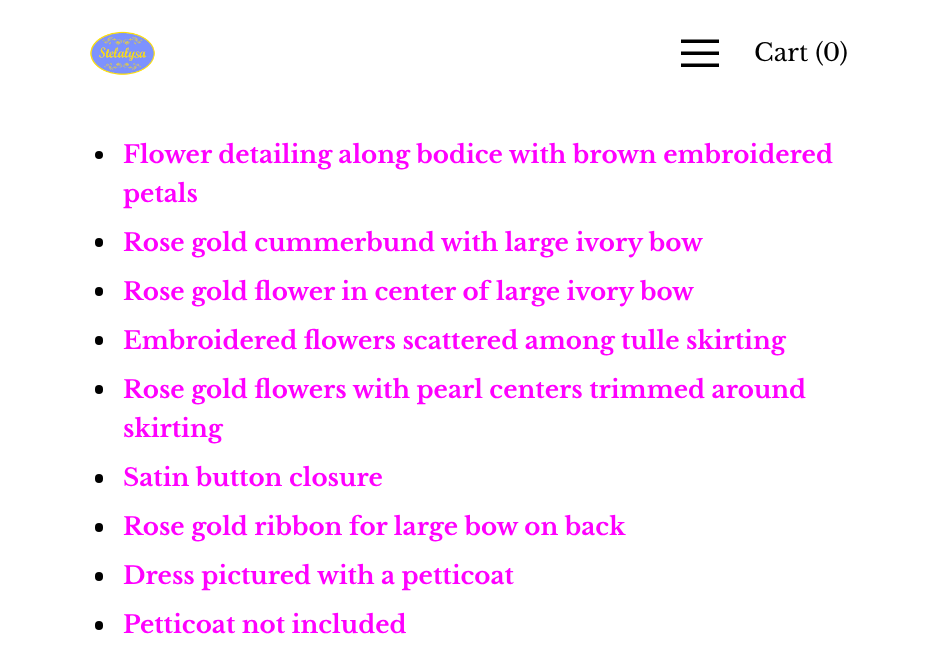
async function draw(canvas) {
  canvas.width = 936;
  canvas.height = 654;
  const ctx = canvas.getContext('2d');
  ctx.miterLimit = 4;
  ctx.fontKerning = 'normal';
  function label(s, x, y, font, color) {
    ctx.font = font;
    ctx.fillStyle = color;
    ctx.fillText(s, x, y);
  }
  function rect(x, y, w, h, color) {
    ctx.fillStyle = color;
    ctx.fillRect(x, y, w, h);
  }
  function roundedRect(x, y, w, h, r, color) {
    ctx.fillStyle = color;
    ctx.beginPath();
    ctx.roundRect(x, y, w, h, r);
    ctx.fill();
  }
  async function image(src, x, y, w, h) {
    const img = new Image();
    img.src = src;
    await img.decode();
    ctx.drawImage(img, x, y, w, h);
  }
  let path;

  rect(0, 0, 936, 654, '#fff');
  await image('assets/img1.png', 90, 31, 65, 44);
  ctx.fillStyle = '#000';
  path = new Path2D('M681 39.5V43H719V39.5ZM681 51.5V55H719V51.5ZM681 63.5V67H719V63.5Z');
  ctx.fill(path);
  label('Cart (0)', 754, 61, '24.5px Libre Baskerville', '#000');
  ctx.beginPath();
  ctx.arc(99, 155, 4, 0, 2 * Math.PI);
  ctx.fill();
  label('Flower detailing along bodice with brown embroidered', 123, 163, 'bold 24.5px Libre Baskerville', '#f0f');
  label('petals', 123, 202, 'bold 24.5px Libre Baskerville', '#f0f');
  roundedRect(95, 238, 8, 9, 4, '#000');
  label('Rose gold cummerbund with large ivory bow', 123, 251, 'bold 24.5px Libre Baskerville', '#f0f');
  roundedRect(95, 287, 8, 9, 4, '#000');
  label('Rose gold flower in center of large ivory bow', 123, 300, 'bold 24.5px Libre Baskerville', '#f0f');
  roundedRect(95, 336, 8, 9, 4, '#000');
  label('Embroidered flowers scattered among tulle skirting', 123, 349, 'bold 24.5px Libre Baskerville', '#f0f');
  roundedRect(95, 385, 8, 9, 4, '#000');
  label('Rose gold flowers with pearl centers trimmed around', 123, 398, 'bold 24.5px Libre Baskerville', '#f0f');
  label('skirting', 123, 437, 'bold 24.5px Libre Baskerville', '#f0f');
  roundedRect(95, 474, 8, 9, 4, '#000');
  label('Satin button closure', 123, 486, 'bold 24.5px Libre Baskerville', '#f0f');
  roundedRect(95, 523, 8, 9, 4, '#000');
  label('Rose gold ribbon for large bow on back', 123, 535, 'bold 24.5px Libre Baskerville', '#f0f');
  roundedRect(95, 572, 8, 9, 4, '#000');
  label('Dress pictured with a petticoat', 123, 584, 'bold 24.5px Libre Baskerville', '#f0f');
  roundedRect(95, 621, 8, 9, 4, '#000');
  label('Petticoat not included', 123, 633, 'bold 24.5px Libre Baskerville', '#f0f');
}

draw(document.querySelector('canvas'));
